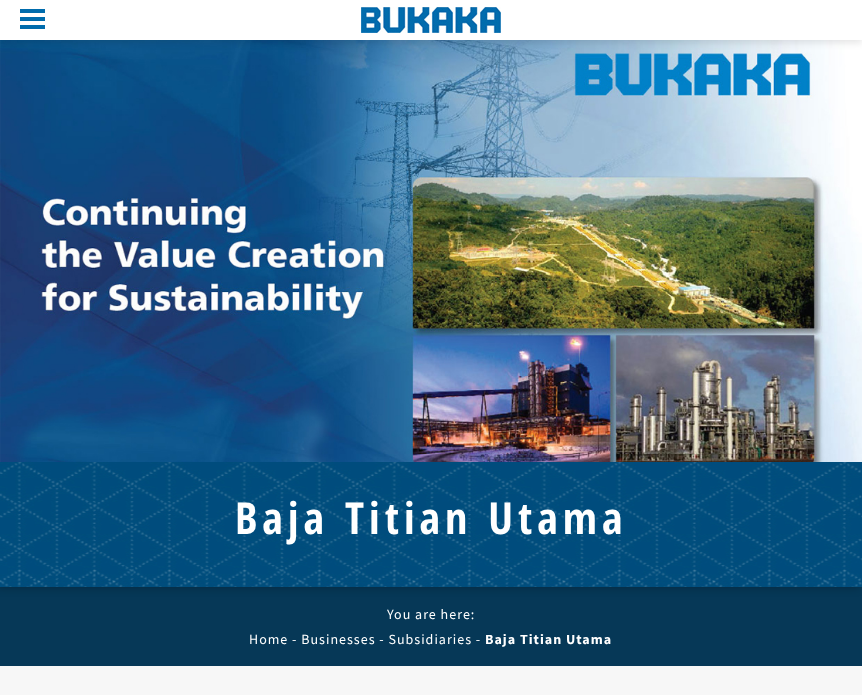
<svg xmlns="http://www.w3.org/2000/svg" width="862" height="695">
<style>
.a{font:bold 44px Open Sans Condensed;letter-spacing:5px;fill:#fff}
.b{font:14px Source Sans Pro;letter-spacing:1px;fill:#fff}
.c{font:bold 14px Source Sans Pro;letter-spacing:1px;fill:#fff}
</style>
<rect width="100%" height="100%" fill="#f7f7f7"/>
<path fill="#063857" d="M0 587h862v79H0z"/>
<path fill="#0000004d" filter="blur(5px)" d="M-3 0h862v587H-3z"/>
<image href="3.png" x="0" y="40" width="862" height="422"/>
<path fill="#0000001a" filter="blur(3.5px)" d="M0 3h862v40H0z"/>
<path fill="#fff" d="M0 0h862v40H0z"/>
<image href="1.png" x="20" y="9" width="25" height="20"/>
<image href="2.png" x="361" y="7" width="140" height="26"/>
<image href="4.png" x="0" y="462" width="862" height="125"/>
<text class="a" x="235" y="534">Baja Titian Utama</text>
<text class="b" x="387" y="619">You are here:</text>
<text class="b" x="249" y="644">Home - Businesses - Subsidiaries -</text>
<text class="c" x="485" y="644">Baja Titian Utama</text>
</svg>
